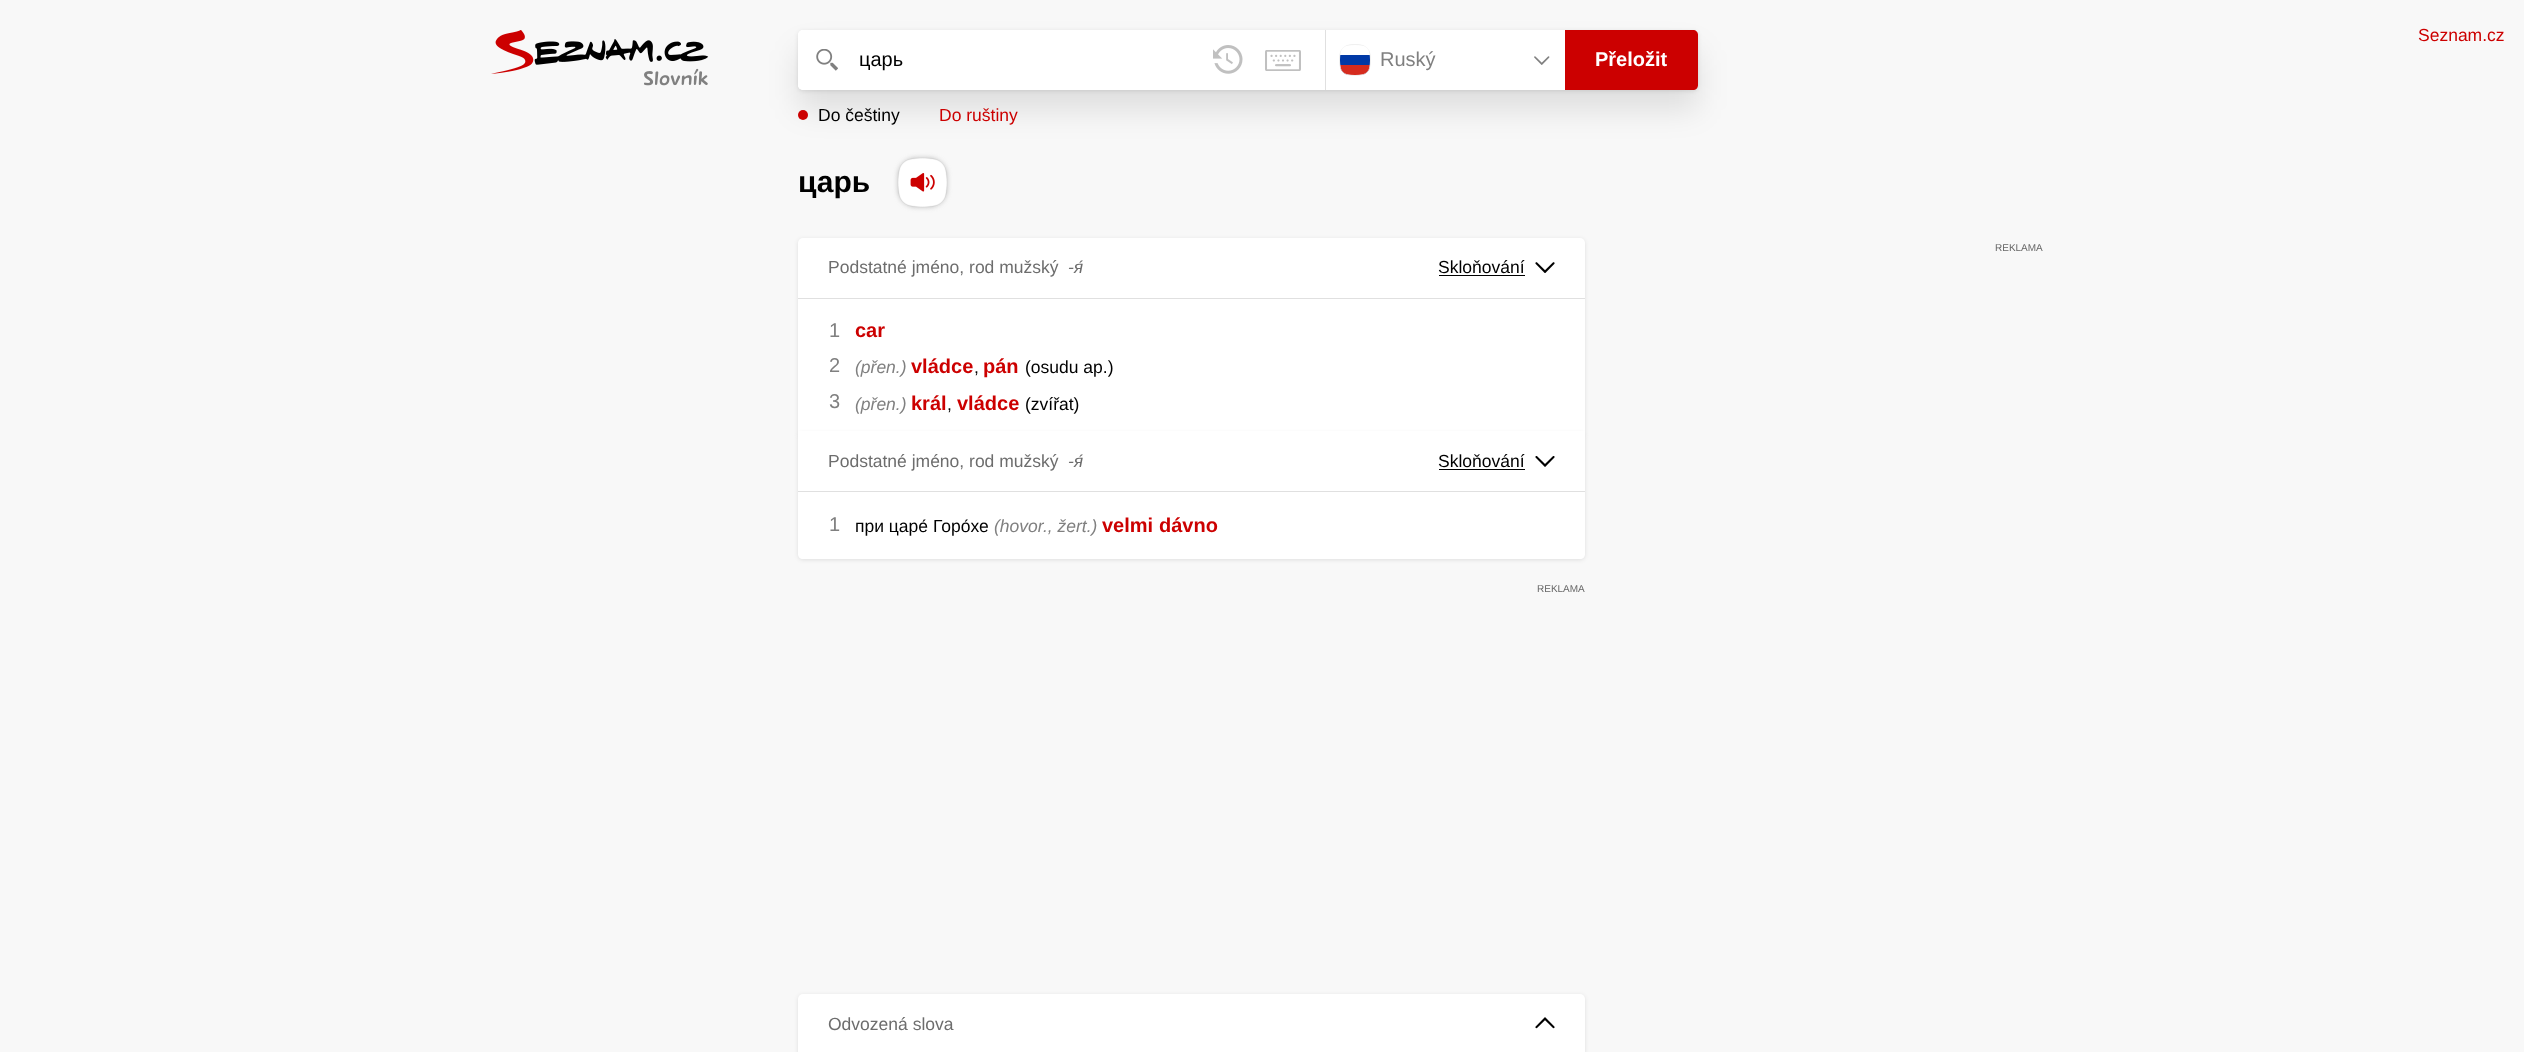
<svg xmlns="http://www.w3.org/2000/svg" width="2524" height="1052">
<style>
.a{font:20px Liberation Sans;fill:#000}
.b{font:20px Liberation Sans;fill:#808080}
.c{font:bold 20px Liberation Sans;fill:#fff}
.d{font:17.5px Liberation Sans;fill:#000}
.e{font:17.5px Liberation Sans;fill:#c00}
.f{font:bold 30px Liberation Sans;fill:#000}
.g{font:10px Liberation Sans;fill:#666}
.h{font:17.5px Liberation Sans;fill:#6d6d6d}
.i{font:italic 17.5px Liberation Sans;fill:#6d6d6d}
.j{font:bold 20px Liberation Sans;fill:#c00}
.k{font:italic 17.5px Liberation Sans;fill:#808080}
</style>
<rect width="100%" height="100%" fill="#f8f8f8"/>
<image href="1.png" x="491" y="30" width="218" height="56"/>
<rect fill="#0000001a" filter="blur(2px)" x="798" y="31" width="900" height="60" rx="5"/>
<rect fill="#0000001a" filter="blur(15px)" x="798" y="50" width="900" height="60" rx="5"/>
<rect fill="#fff" x="798" y="30" width="900" height="60" rx="5"/>
<rect fill="#fff" x="798" y="30" width="60" height="60" rx="5"/>
<image href="2.png" x="816" y="49" width="22" height="22"/>
<image href="3.png" x="1213" y="45" width="30" height="29"/>
<image href="4.png" x="1265" y="50" width="36" height="21"/>
<path fill="#e0e0e0" d="M1325 30h1v60H1325z"/>
<image href="5.png" x="1339" y="44" width="32" height="32"/>
<image href="6.png" x="1534" y="56" width="16" height="9"/>
<path fill="#c00" d="M1565 30h128c3 0 5 2 5 5v50c0 3-2 5-5 5h-128z"/>
<circle fill="#c00" cx="803" cy="115" r="5"/>
<rect fill="#808080" filter="blur(3px)" x="900" y="160" width="45" height="45" rx="16"/>
<image href="7.png" x="898" y="158" width="49" height="49"/>
<rect fill="#0000001a" filter="blur(2px)" x="798" y="239" width="787" height="199" rx="5"/>
<rect fill="#fff" x="798" y="238" width="787" height="198" rx="5"/>
<path fill="#e0e0e0" d="M798 298h787v1H798z"/>
<path fill="#000" d="M1439 275h86v1H1439z"/>
<image href="8.png" x="1535" y="262" width="20" height="11"/>
<rect fill="#0000001a" filter="blur(2px)" x="798" y="433" width="787" height="127" rx="5"/>
<path fill="#fff" d="M798 431h787v123c0 3-2 5-5 5h-777c-3 0-5-2-5-5z"/>
<path fill="#e0e0e0" d="M798 491h787v1H798z"/>
<path fill="#000" d="M1439 469h86v1H1439z"/>
<image href="9.png" x="1535" y="456" width="20" height="11"/>
<rect fill="#0000001a" filter="blur(2px)" x="798" y="995" width="787" height="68" rx="5"/>
<rect fill="#fff" x="798" y="994" width="787" height="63" rx="5"/>
<image href="10.png" x="1535" y="1017" width="20" height="12"/>
<text class="a" x="859" y="66">царь</text>
<text class="b" x="1380" y="66">Ruský</text>
<text class="c" x="1595" y="66">Přeložit</text>
<text class="d" x="818" y="121">Do češtiny</text>
<text class="e" x="939" y="121">Do ruštiny</text>
<text class="e" x="2418" y="41">Seznam.cz</text>
<text class="f" x="798" y="192">царь</text>
<text class="g" x="1995" y="251">REKLAMA</text>
<text class="h" x="828" y="273">Podstatné jméno, rod mužský</text>
<text class="i" x="1068" y="273">-я́</text>
<text class="d" x="1438" y="273">Skloňování</text>
<text class="b" x="829" y="337">1</text>
<text class="j" x="855" y="337">car</text>
<text class="b" x="829" y="372">2</text>
<text class="k" x="855" y="373">(přen.)</text>
<text class="j" x="911" y="373">vládce</text>
<text class="d" x="974" y="373">,</text>
<text class="j" x="983" y="373">pán</text>
<text class="d" x="1025" y="373">(osudu ap.)</text>
<text class="b" x="829" y="408">3</text>
<text class="k" x="855" y="410">(přen.)</text>
<text class="j" x="911" y="410">král</text>
<text class="d" x="947" y="410">,</text>
<text class="j" x="957" y="410">vládce</text>
<text class="d" x="1025" y="410">(zvířat)</text>
<text class="h" x="828" y="467">Podstatné jméno, rod mužský</text>
<text class="i" x="1068" y="467">-я́</text>
<text class="d" x="1438" y="467">Skloňování</text>
<text class="b" x="829" y="531">1</text>
<text class="d" x="855" y="532">при царе́ Горо́хе</text>
<text class="k" x="994" y="532">(hovor., žert.)</text>
<text class="j" x="1102" y="532">velmi</text>
<text class="j" x="1159" y="532">dávno</text>
<text class="g" x="1537" y="592">REKLAMA</text>
<text class="h" x="828" y="1030">Odvozená slova</text>
</svg>
